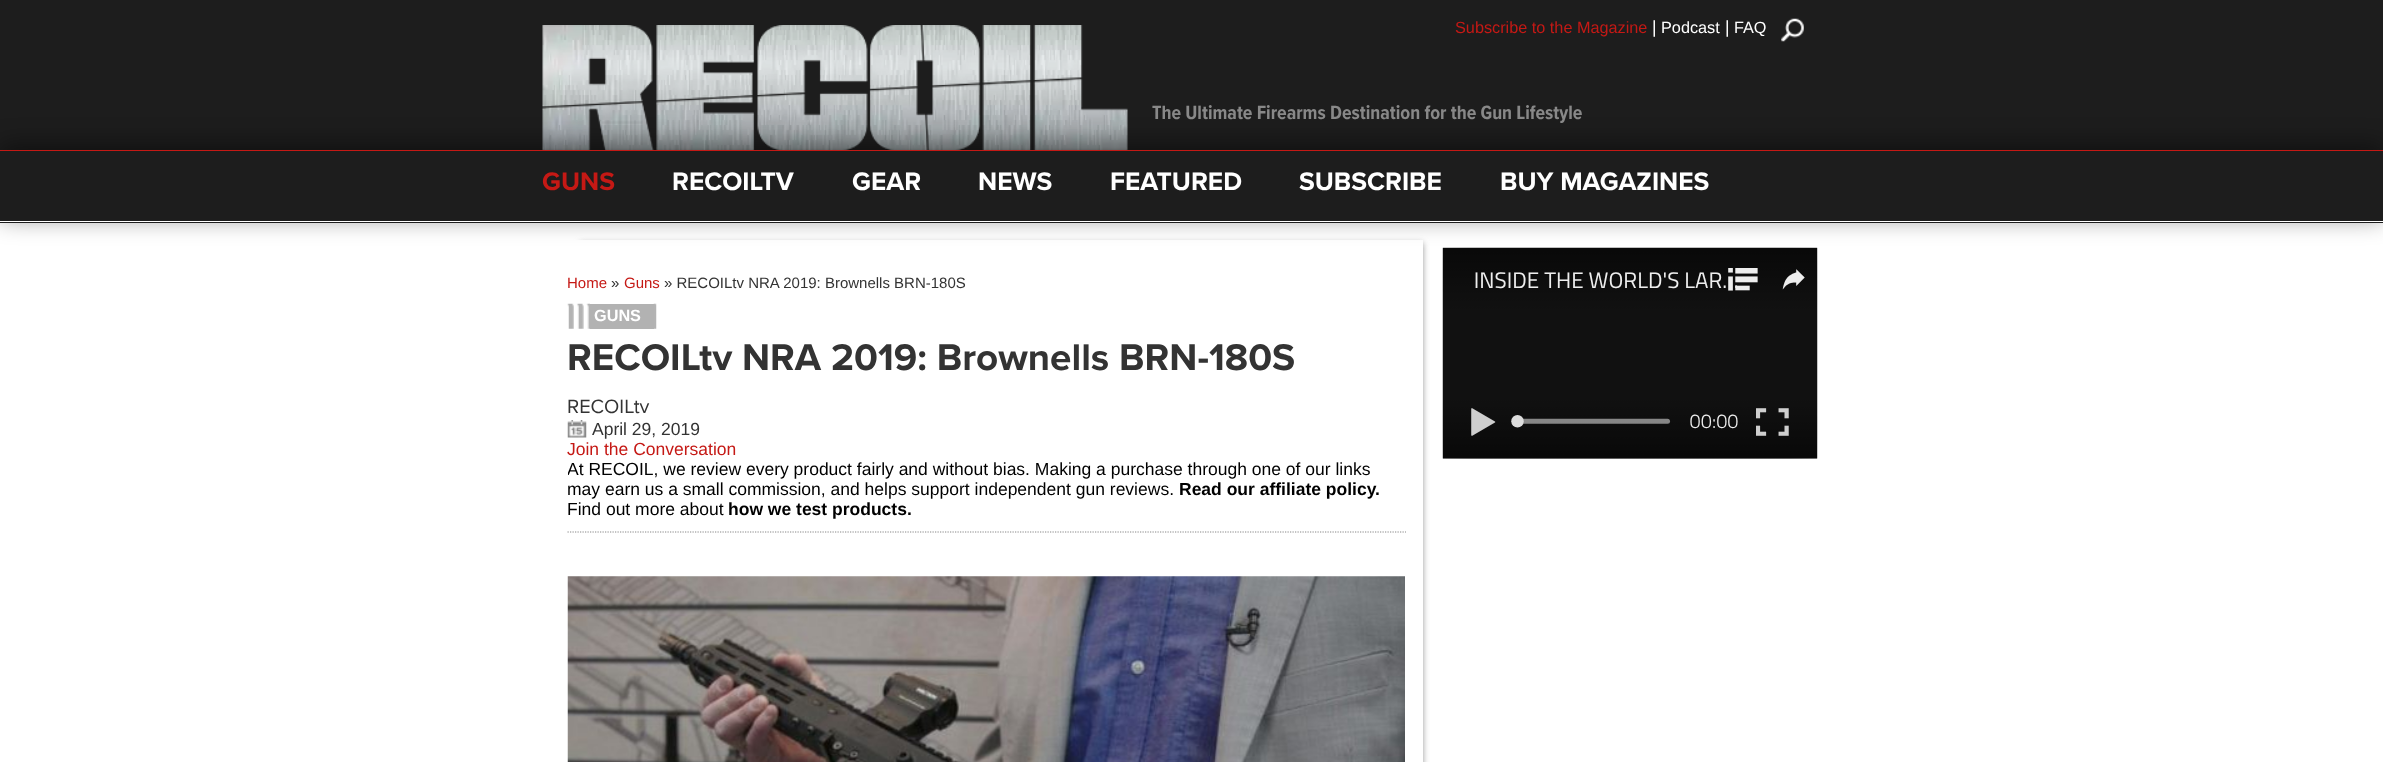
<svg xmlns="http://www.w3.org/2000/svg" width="2383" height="762">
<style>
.a{font:bold 20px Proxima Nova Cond;fill:#888}
.b{font:16.25px Liberation Sans;fill:#c51915}
.c{font:17.5px Liberation Sans;fill:#fff}
.d{font:16.25px Liberation Sans;fill:#fff}
.e{font:bold 26.25px Proxima Nova;fill:#c51915}
.f{font:bold 26.25px Proxima Nova;fill:#fff}
.g{font:15px Liberation Sans;fill:#c51915}
.h{font:15px Liberation Sans;fill:#333}
.i{font:bold 16.25px Liberation Sans;fill:#fff}
.j{font:bold 38.5px Proxima Nova;fill:#333}
.k{font:20px Proxima Nova;fill:#333}
.l{font:17.5px Liberation Sans;fill:#333}
.m{font:17.5px Liberation Sans;fill:#c51915}
.n{font:17.5px Liberation Sans;fill:#000}
.o{font:bold 17.5px Liberation Sans;fill:#000}
</style>
<defs>
<clipPath id="clip1"><path d="M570 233h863v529h-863zm-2 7h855v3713h-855z" clip-rule="evenodd"/></clipPath>
<clipPath id="clip2"><path d="M568 291h856v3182H568z"/></clipPath>
</defs>
<rect width="100%" height="100%" fill="#fff"/>
<path fill="#1d1d1d" d="M0 0h2383v150H0z"/>
<image href="1.png" x="542" y="25" width="586" height="125"/>
<image href="2.png" x="1781" y="18" width="23" height="24"/>
<image href="7.png" x="1442" y="247" width="376" height="212"/>
<path fill="#00000073" filter="blur(12.5px)" d="M0 145h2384v73H0z"/>
<path fill="#1d1d1d" d="M0 151h2383v72H0z"/>
<path fill="#c51915" d="M0 150h2383v1H0z"/>
<path fill="#fff" d="M0 221h2383v1H0z"/>
<g clip-path="url(#clip1)">
<path fill="#999" filter="blur(3px)" d="M580 243h843v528H580z"/>
</g>
<image href="3.png" x="567" y="303" width="23" height="26"/>
<path fill="#b2b2b2" d="M590 304h64v25H590z"/>
<image href="4.png" x="653" y="303" width="4" height="26"/>
<image href="5.png" x="567" y="420" width="20" height="18"/>
<path fill="none" stroke="#888" stroke-width="1.2" stroke-dasharray="1.25 1.25" d="M567.5 532h838.5"/>
<image href="6.png" x="567" y="576" width="838" height="186"/>
<path fill="#fff" d="M1422 291h1v50H1422z"/>
<text class="a" x="1152" y="119">The Ultimate Firearms Destination for the Gun Lifestyle</text>
<text class="b" x="1455" y="33">Subscribe to the Magazine</text>
<text class="c" x="1652" y="33">|</text>
<text class="d" x="1661" y="33">Podcast</text>
<text class="c" x="1725" y="33">|</text>
<text class="d" x="1734" y="33">FAQ</text>
<text class="e" x="542" y="190">GUNS</text>
<text class="f" x="672" y="190">RECOILTV</text>
<text class="f" x="852" y="190">GEAR</text>
<text class="f" x="978" y="190">NEWS</text>
<text class="f" x="1110" y="190">FEATURED</text>
<text class="f" x="1299" y="190">SUBSCRIBE</text>
<text class="f" x="1500" y="190">BUY MAGAZINES</text>
<text class="g" x="567" y="288">Home</text>
<text class="h" x="611" y="288">»</text>
<text class="g" x="624" y="288">Guns</text>
<text class="h" x="664" y="288">» RECOILtv NRA 2019: Brownells BRN-180S</text>
<text class="i" x="594" y="321">GUNS</text>
<text class="j" x="567" y="370">RECOILtv NRA 2019: Brownells BRN-180S</text>
<text class="k" x="567" y="413">RECOILtv</text>
<text class="l" x="592" y="435">April 29, 2019</text>
<text class="m" x="567" y="455">Join the Conversation</text>
<g clip-path="url(#clip2)">
<text class="n" x="567" y="475">At RECOIL, we review every product fairly and without bias. Making a purchase through one of our links</text>
</g>
<text class="n" x="567" y="495">may earn us a small commission, and helps support independent gun reviews.</text>
<text class="o" x="1179" y="495">Read our affiliate policy.</text>
<text class="n" x="567" y="515">Find out more about</text>
<text class="o" x="728" y="515">how we test products.</text>
</svg>
